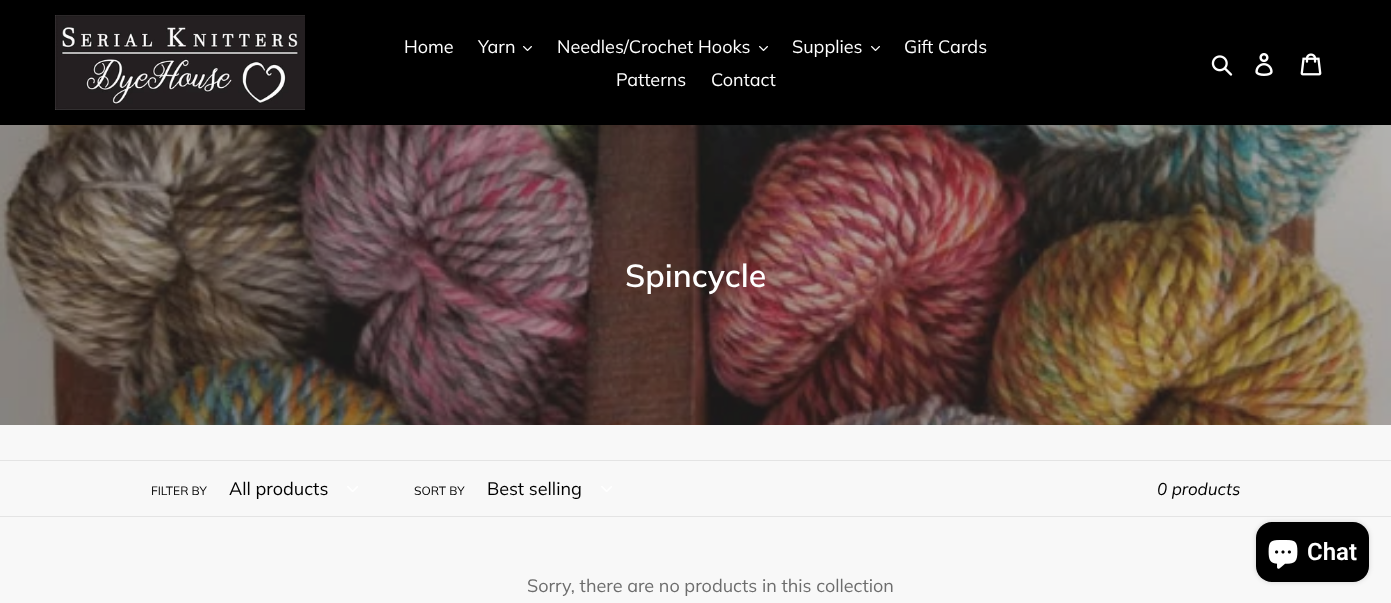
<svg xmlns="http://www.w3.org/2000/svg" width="1391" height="603">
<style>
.a{font:18px Muli;fill:#fff}
.b{font:600 32px Muli;fill:#fff}
.c{font:12px Muli;fill:#000}
.d{font:18px Muli;fill:#000}
.e{font:italic 17px Muli;fill:#000}
.f{font:18px Muli;fill:#6d6d6d}
.g{font:600 24px Roboto;fill:#fff}
</style>
<rect width="100%" height="100%" fill="#f8f8f8"/>
<path fill="#000" d="M0 0h1391v125H0z"/>
<image href="1.png" x="55" y="15" width="250" height="95"/>
<image href="2.png" x="523" y="46" width="9" height="5"/>
<image href="2.png" x="759" y="46" width="9" height="5"/>
<image href="2.png" x="871" y="46" width="9" height="5"/>
<image href="3.png" x="1211" y="55" width="22" height="21"/>
<image href="4.png" x="1255" y="53" width="18" height="23"/>
<image href="5.png" x="1300" y="53" width="22" height="23"/>
<image href="6.png" x="0" y="125" width="1391" height="300"/>
<path fill="#e4e4e4" d="M0 460h1391v1H0z"/>
<path fill="#e4e4e4" d="M0 516h1391v1H0z"/>
<image href="7.png" x="347" y="486" width="11" height="6"/>
<image href="7.png" x="601" y="486" width="11" height="6"/>
<rect fill="#00000026" filter="blur(2.5px)" x="1256" y="522" width="113" height="60" rx="16"/>
<rect fill="#000" x="1256" y="522" width="113" height="60" rx="16"/>
<image href="8.png" x="1268" y="540" width="30" height="29"/>
<text class="a" x="404" y="53">Home</text>
<text class="a" x="478" y="53">Yarn</text>
<text class="a" x="557" y="53">Needles/Crochet Hooks</text>
<text class="a" x="792" y="53">Supplies</text>
<text class="a" x="904" y="53">Gift Cards</text>
<text class="a" x="616" y="86">Patterns</text>
<text class="a" x="711" y="86">Contact</text>
<text class="b" x="625" y="287">Spincycle</text>
<text class="c" x="151" y="495">FILTER BY</text>
<text class="d" x="229" y="495">All products</text>
<text class="c" x="414" y="495">SORT BY</text>
<text class="d" x="487" y="495">Best selling</text>
<text class="e" x="1157" y="495">0 products</text>
<text class="f" x="527" y="592">Sorry, there are no products in this collection</text>
<text class="g" x="1307" y="560">Chat</text>
</svg>
